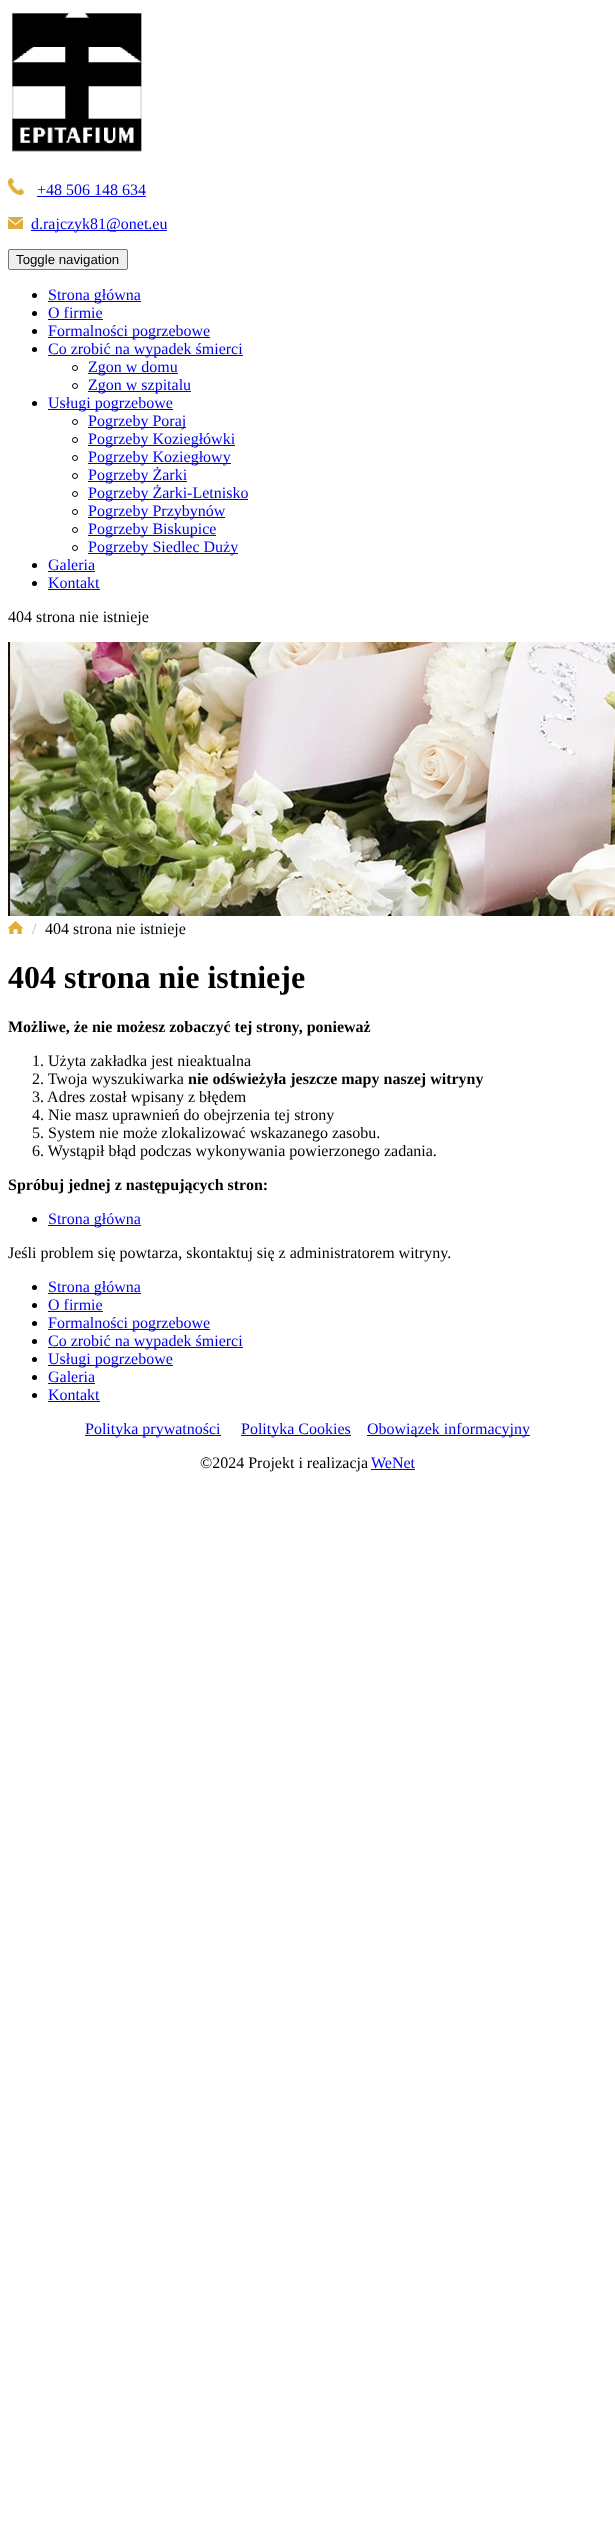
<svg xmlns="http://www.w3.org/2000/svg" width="615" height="2521">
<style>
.a{font:16px Liberation Serif;fill:#00e}
.b{font:13.25px Liberation Sans;fill:#000}
.c{font:16px Liberation Serif;fill:#000}
.d{font:16px Liberation Serif;fill:#b8b8b8}
.e{font:bold 32px Liberation Serif;fill:#000}
.f{font:bold 16px Liberation Serif;fill:#000}
</style>
<rect width="100%" height="100%" fill="#fff"/>
<image href="1.png" x="11" y="11" width="132" height="141"/>
<image href="2.png" x="8" y="178" width="17" height="17"/>
<path fill="#00e" d="M37 196h109v1H37z"/>
<image href="3.png" x="8" y="217" width="15" height="12"/>
<path fill="#00e" d="M31 230h136v1H31z"/>
<rect fill="#efefef" stroke="#767676" x="8.5" y="249.5" width="119" height="20" rx="1.5"/>
<circle fill="#000" cx="34.5" cy="295.5" r="2.5"/>
<path fill="#00e" d="M48 301h93v1H48z"/>
<circle fill="#000" cx="34.5" cy="313.5" r="2.5"/>
<path fill="#00e" d="M48 319h55v1H48z"/>
<circle fill="#000" cx="34.5" cy="331.5" r="2.5"/>
<path fill="#00e" d="M48 337h162v1H48z"/>
<circle fill="#000" cx="34.5" cy="349.5" r="2.5"/>
<path fill="#00e" d="M48 355h195v1H48z"/>
<circle fill="none" stroke="#000" cx="75" cy="368" r="2.5"/>
<path fill="#00e" d="M88 373h90v1H88z"/>
<circle fill="none" stroke="#000" cx="75" cy="386" r="2.5"/>
<path fill="#00e" d="M88 391h103v1H88z"/>
<circle fill="#000" cx="34.5" cy="403.5" r="2.5"/>
<path fill="#00e" d="M48 409h125v1H48z"/>
<circle fill="none" stroke="#000" cx="75" cy="422" r="2.5"/>
<path fill="#00e" d="M88 427h98v1H88z"/>
<circle fill="none" stroke="#000" cx="75" cy="440" r="2.5"/>
<path fill="#00e" d="M88 445h147v1H88z"/>
<circle fill="none" stroke="#000" cx="75" cy="458" r="2.5"/>
<path fill="#00e" d="M88 463h143v1H88z"/>
<circle fill="none" stroke="#000" cx="75" cy="476" r="2.5"/>
<path fill="#00e" d="M88 481h99v1H88z"/>
<circle fill="none" stroke="#000" cx="75" cy="494" r="2.5"/>
<path fill="#00e" d="M88 499h160v1H88z"/>
<circle fill="none" stroke="#000" cx="75" cy="512" r="2.5"/>
<path fill="#00e" d="M88 517h137v1H88z"/>
<circle fill="none" stroke="#000" cx="75" cy="530" r="2.5"/>
<path fill="#00e" d="M88 535h128v1H88z"/>
<circle fill="none" stroke="#000" cx="75" cy="548" r="2.5"/>
<path fill="#00e" d="M88 553h150v1H88z"/>
<circle fill="#000" cx="34.5" cy="565.5" r="2.5"/>
<path fill="#00e" d="M48 571h47v1H48z"/>
<circle fill="#000" cx="34.5" cy="583.5" r="2.5"/>
<path fill="#00e" d="M48 589h52v1H48z"/>
<image href="4.png" x="8" y="642" width="607" height="274"/>
<image href="5.png" x="8" y="921" width="15" height="13"/>
<circle fill="#000" cx="34.5" cy="1219.5" r="2.5"/>
<path fill="#00e" d="M48 1225h93v1H48z"/>
<circle fill="#000" cx="34.5" cy="1287.5" r="2.5"/>
<path fill="#00e" d="M48 1293h93v1H48z"/>
<circle fill="#000" cx="34.5" cy="1305.5" r="2.5"/>
<path fill="#00e" d="M48 1311h55v1H48z"/>
<circle fill="#000" cx="34.5" cy="1323.5" r="2.5"/>
<path fill="#00e" d="M48 1329h162v1H48z"/>
<circle fill="#000" cx="34.5" cy="1341.5" r="2.5"/>
<path fill="#00e" d="M48 1347h195v1H48z"/>
<circle fill="#000" cx="34.5" cy="1359.5" r="2.5"/>
<path fill="#00e" d="M48 1365h125v1H48z"/>
<circle fill="#000" cx="34.5" cy="1377.5" r="2.5"/>
<path fill="#00e" d="M48 1383h47v1H48z"/>
<circle fill="#000" cx="34.5" cy="1395.5" r="2.5"/>
<path fill="#00e" d="M48 1401h52v1H48z"/>
<path fill="#00e" d="M85 1435h136v1H85z"/>
<path fill="#00e" d="M241 1435h110v1H241z"/>
<path fill="#00e" d="M367 1435h163v1H367z"/>
<path fill="#00e" d="M371 1469h44v1H371z"/>
<text class="a" x="37" y="195">+48 506 148 634</text>
<text class="a" x="31" y="229">d.rajczyk81@onet.eu</text>
<text class="b" x="16" y="264">Toggle navigation</text>
<text class="a" x="48" y="300">Strona główna</text>
<text class="a" x="48" y="318">O firmie</text>
<text class="a" x="48" y="336">Formalności pogrzebowe</text>
<text class="a" x="48" y="354">Co zrobić na wypadek śmierci</text>
<text class="a" x="88" y="372">Zgon w domu</text>
<text class="a" x="88" y="390">Zgon w szpitalu</text>
<text class="a" x="48" y="408">Usługi pogrzebowe</text>
<text class="a" x="88" y="426">Pogrzeby Poraj</text>
<text class="a" x="88" y="444">Pogrzeby Koziegłówki</text>
<text class="a" x="88" y="462">Pogrzeby Koziegłowy</text>
<text class="a" x="88" y="480">Pogrzeby Żarki</text>
<text class="a" x="88" y="498">Pogrzeby Żarki-Letnisko</text>
<text class="a" x="88" y="516">Pogrzeby Przybynów</text>
<text class="a" x="88" y="534">Pogrzeby Biskupice</text>
<text class="a" x="88" y="552">Pogrzeby Siedlec Duży</text>
<text class="a" x="48" y="570">Galeria</text>
<text class="a" x="48" y="588">Kontakt</text>
<text class="c" x="8" y="622">404 strona nie istnieje</text>
<text class="d" x="32" y="934">/</text>
<text class="c" x="45" y="934">404 strona nie istnieje</text>
<text class="e" x="8" y="988">404 strona nie istnieje</text>
<text class="f" x="8" y="1032">Możliwe, że nie możesz zobaczyć tej strony, ponieważ</text>
<text class="c" x="32" y="1066">1. Użyta zakładka jest nieaktualna</text>
<text class="c" x="32" y="1084">2. Twoja wyszukiwarka</text>
<text class="f" x="188" y="1084">nie odświeżyła jeszcze mapy naszej witryny</text>
<text class="c" x="32" y="1102">3. Adres został wpisany z błędem</text>
<text class="c" x="32" y="1120">4. Nie masz uprawnień do obejrzenia tej strony</text>
<text class="c" x="32" y="1138">5. System nie może zlokalizować wskazanego zasobu.</text>
<text class="c" x="32" y="1156">6. Wystąpił błąd podczas wykonywania powierzonego zadania.</text>
<text class="f" x="8" y="1190">Spróbuj jednej z następujących stron:</text>
<text class="a" x="48" y="1224">Strona główna</text>
<text class="c" x="8" y="1258">Jeśli problem się powtarza, skontaktuj się z administratorem witryny.</text>
<text class="a" x="48" y="1292">Strona główna</text>
<text class="a" x="48" y="1310">O firmie</text>
<text class="a" x="48" y="1328">Formalności pogrzebowe</text>
<text class="a" x="48" y="1346">Co zrobić na wypadek śmierci</text>
<text class="a" x="48" y="1364">Usługi pogrzebowe</text>
<text class="a" x="48" y="1382">Galeria</text>
<text class="a" x="48" y="1400">Kontakt</text>
<text class="a" x="85" y="1434">Polityka prywatności</text>
<text class="a" x="241" y="1434">Polityka Cookies</text>
<text class="a" x="367" y="1434">Obowiązek informacyjny</text>
<text class="c" x="200" y="1468">©2024 Projekt i realizacja</text>
<text class="a" x="371" y="1468">WeNet</text>
</svg>
